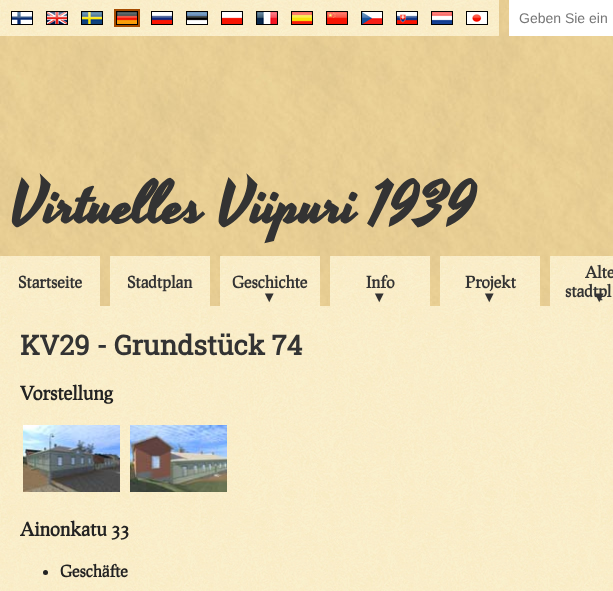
<svg xmlns="http://www.w3.org/2000/svg" width="613" height="591">
<style>
.a{font:14px Liberation Sans;fill:#757575}
.b{font:bold 60px Yesteryear;fill:#333}
.c{font:bold 16px Prociono;fill:#333}
.d{font:bold 16px DejaVu Sans;fill:#333}
.e{font:bold 27.25px Roboto Slab;fill:#333}
.f{font:bold 18.75px Prociono;fill:#222}
.g{font:bold 16px Prociono;fill:#222}
</style>
<rect width="100%" height="100%" fill="#fff"/>
<image href="1.png" x="0" y="0" width="613" height="306"/>
<image href="2.png" x="0" y="0" width="499" height="36"/>
<path fill="#000" d="M11 11h22v14H11z"/>
<image href="3.png" x="12" y="12" width="20" height="12"/>
<path fill="#000" d="M46 11h22v14H46z"/>
<image href="4.png" x="47" y="12" width="20" height="12"/>
<path fill="#000" d="M81 11h22v14H81z"/>
<image href="5.png" x="82" y="12" width="20" height="12"/>
<path fill="#000" stroke="#a64b00" stroke-width="2" d="M115 10h24v16H115z"/>
<image href="6.png" x="117" y="12" width="20" height="12"/>
<path fill="#000" d="M151 11h22v14H151z"/>
<image href="7.png" x="152" y="12" width="20" height="12"/>
<path fill="#000" d="M186 11h22v14H186z"/>
<image href="8.png" x="187" y="12" width="20" height="12"/>
<path fill="#000" d="M221 11h22v14H221z"/>
<image href="9.png" x="222" y="12" width="20" height="12"/>
<path fill="#000" d="M256 11h22v14H256z"/>
<image href="10.png" x="257" y="12" width="20" height="12"/>
<path fill="#000" d="M291 11h22v14H291z"/>
<image href="11.png" x="292" y="12" width="20" height="12"/>
<path fill="#000" d="M326 11h22v14H326z"/>
<image href="12.png" x="327" y="12" width="20" height="12"/>
<path fill="#000" d="M361 11h22v14H361z"/>
<image href="13.png" x="362" y="12" width="20" height="12"/>
<path fill="#000" d="M396 11h22v14H396z"/>
<image href="14.png" x="397" y="12" width="20" height="12"/>
<path fill="#000" d="M431 11h22v14H431z"/>
<image href="15.png" x="432" y="12" width="20" height="12"/>
<path fill="#000" d="M466 11h22v14H466z"/>
<image href="16.png" x="467" y="12" width="20" height="12"/>
<path fill="#fff" d="M509 0h104v36H509z"/>
<image href="17.png" x="0" y="256" width="100" height="50"/>
<image href="17.png" x="110" y="256" width="100" height="50"/>
<image href="17.png" x="220" y="256" width="100" height="50"/>
<image href="17.png" x="330" y="256" width="100" height="50"/>
<image href="17.png" x="440" y="256" width="100" height="50"/>
<image href="18.png" x="550" y="256" width="63" height="50"/>
<image href="19.png" x="0" y="306" width="613" height="285"/>
<image href="20.png" x="23" y="425" width="97" height="67"/>
<image href="21.png" x="130" y="425" width="97" height="67"/>
<circle fill="#222" cx="45.5" cy="572.5" r="2.5"/>
<text class="a" x="519" y="23">Geben Sie ein</text>
<text class="b" x="10" y="222">Virtuelles Viipuri 1939</text>
<text class="c" x="18" y="288">Startseite</text>
<text class="c" x="127" y="288">Stadtplan</text>
<text class="c" x="232" y="288">Geschichte</text>
<text class="d" x="265" y="302">▾</text>
<text class="c" x="366" y="288">Info</text>
<text class="d" x="375" y="302">▾</text>
<text class="c" x="465" y="288">Projekt</text>
<text class="d" x="485" y="302">▾</text>
<text class="c" x="585" y="278">Alte</text>
<text class="c" x="565" y="297">stadtpl</text>
<text class="d" x="595" y="302">▾</text>
<text class="e" x="20" y="355">KV29 - Grundstück 74</text>
<text class="f" x="20" y="400">Vorstellung</text>
<text class="f" x="20" y="536">Ainonkatu 33</text>
<text class="g" x="60" y="577">Geschäfte</text>
</svg>
